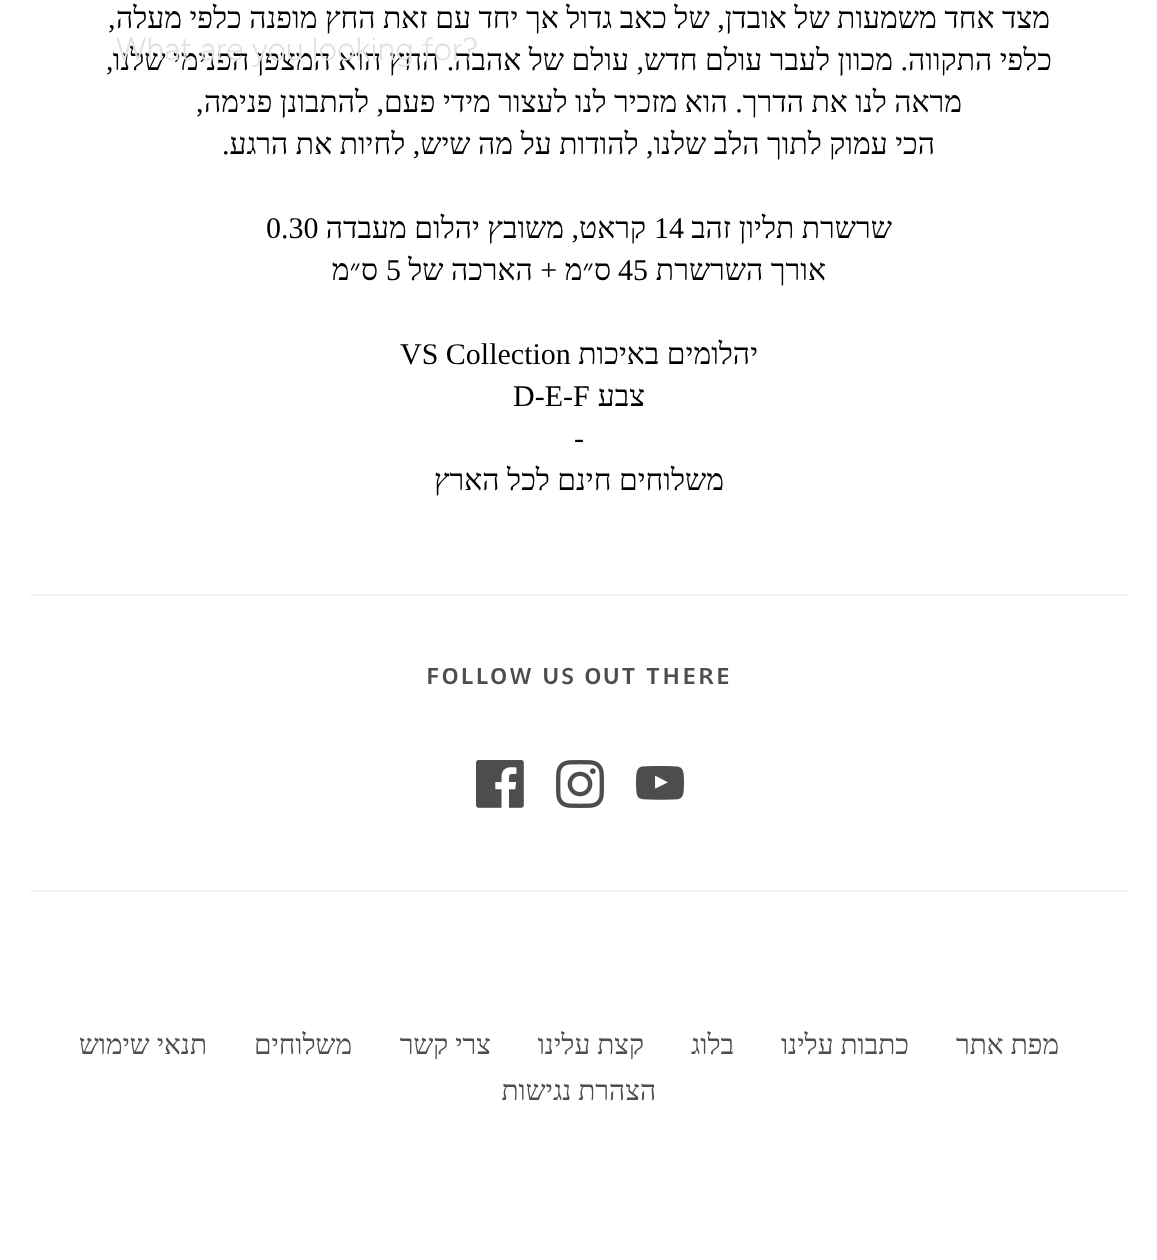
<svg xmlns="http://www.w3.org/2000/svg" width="1157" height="1260">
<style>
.a{font:30px Liberation Serif;direction:rtl;fill:#000}
.b{font:30px Liberation Serif;fill:#000}
.c{font:300 32px Figtree;fill:#e1e1e1}
.d{font:500 28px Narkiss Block;letter-spacing:2.25px;fill:#4d4d4d}
.e{font:28px Liberation Serif;direction:rtl;fill:#4d4d4d}
</style>
<rect width="100%" height="100%" fill="#fff"/>
<path fill="#f4f2f1" d="M30 594h1098v2H30z"/>
<path fill="#f4f2f1" d="M30 890h1098v2H30z"/>
<image href="1.png" x="636" y="766" width="48" height="34"/>
<image href="2.png" x="556" y="760" width="48" height="48"/>
<image href="3.png" x="476" y="760" width="48" height="48"/>
<text class="a" x="1050" y="28">מצד אחד משמעות של אובדן, של כאב גדול אך יחד עם זאת החץ מופנה כלפי מעלה</text>
<text class="b" x="108" y="28">,</text>
<text class="a" x="1052" y="70">כלפי התקווה. מכוון לעבר עולם חדש, עולם של אהבה. החץ הוא המצפן הפנימי שלנו</text>
<text class="b" x="106" y="70">,</text>
<text class="a" x="962" y="112">מראה לנו את הדרך. הוא מזכיר לנו לעצור מידי פעם, להתבונן פנימה</text>
<text class="b" x="196" y="112">,</text>
<text class="a" x="935" y="154">הכי עמוק לתוך הלב שלנו, להודות על מה שיש, לחיות את הרגע</text>
<text class="b" x="222" y="154">.</text>
<text class="a" x="892" y="238">שרשרת תליון זהב</text>
<text class="b" x="654" y="238">14</text>
<text class="a" x="646" y="238">קראט, משובץ יהלום מעבדה</text>
<text class="b" x="266" y="238">0.30</text>
<text class="a" x="826" y="280">אורך השרשרת</text>
<text class="b" x="618" y="280">45</text>
<text class="a" x="611" y="280">ס״מ + הארכה של</text>
<text class="b" x="386" y="280">5</text>
<text class="a" x="378" y="280">ס״מ</text>
<text class="a" x="758" y="364">יהלומים באיכות</text>
<text class="b" x="400" y="364">VS Collection</text>
<text class="a" x="645" y="406">צבע</text>
<text class="b" x="513" y="406">D-E-F</text>
<text class="b" x="574" y="448">-</text>
<text class="a" x="724" y="490">משלוחים חינם לכל הארץ</text>
<text class="c" x="116" y="60">What are you looking for?</text>
<text class="d" x="426" y="684">FOLLOW US OUT THERE</text>
<text class="e" x="1059" y="1054">מפת אתר</text>
<text class="e" x="909" y="1054">כתבות עלינו</text>
<text class="e" x="734" y="1054">בלוג</text>
<text class="e" x="644" y="1054">קצת עלינו</text>
<text class="e" x="491" y="1054">צרי קשר</text>
<text class="e" x="352" y="1054">משלוחים</text>
<text class="e" x="207" y="1054">תנאי שימוש</text>
<text class="e" x="656" y="1100">הצהרת נגישות</text>
</svg>
